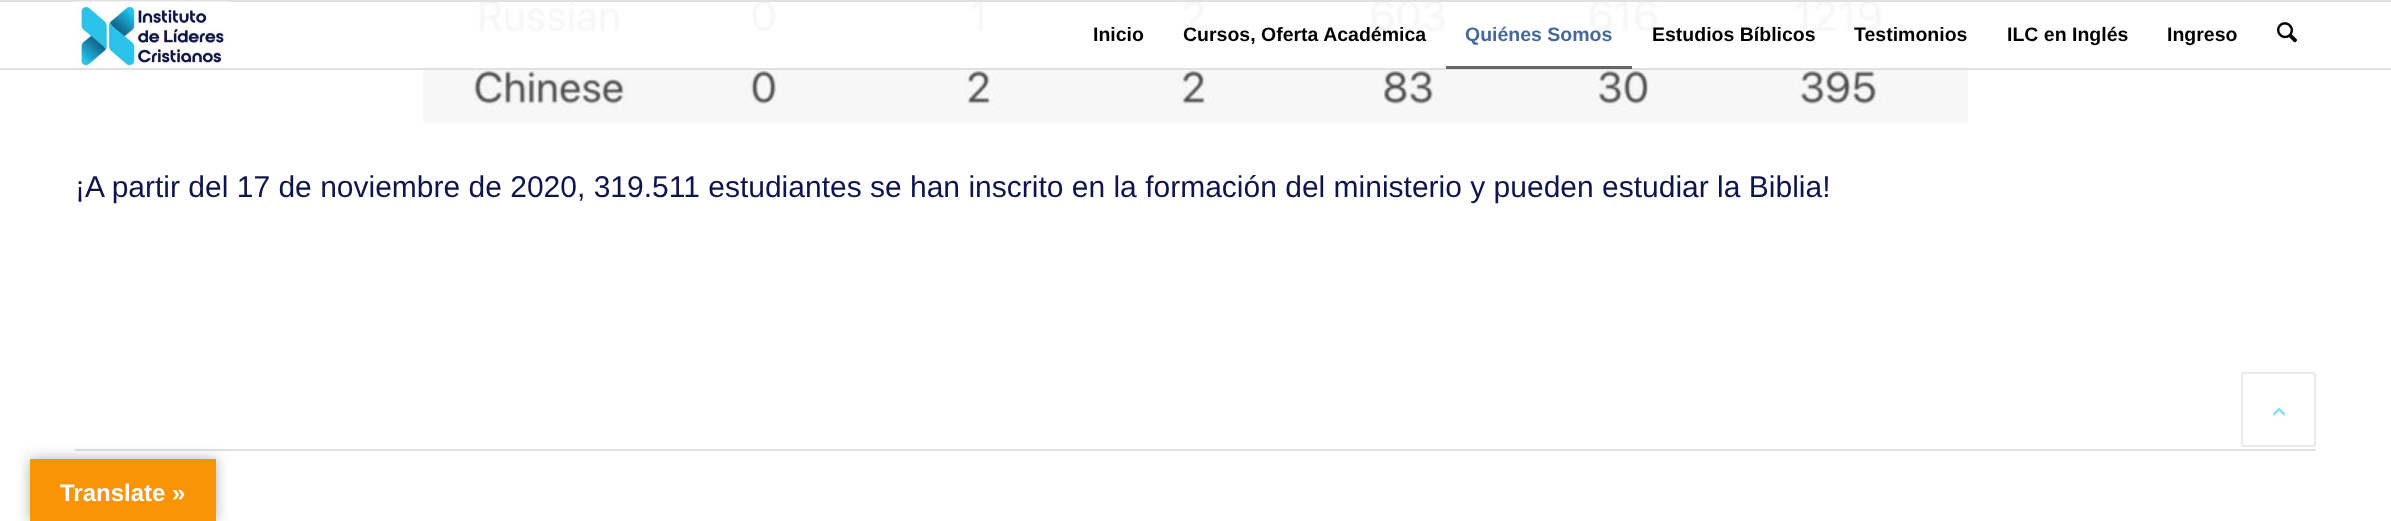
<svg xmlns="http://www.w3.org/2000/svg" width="2391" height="521">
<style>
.a{font:bold 19.5px Liberation Sans;fill:#000}
.b{font:bold 19.5px Liberation Sans;fill:#45699c}
.c{font:30px Liberation Sans;fill:#0f154c}
.d{font:bold 24px Liberation Sans;fill:#fff}
</style>
<rect width="100%" height="100%" fill="#fff"/>
<image href="3.png" x="423" y="2" width="1545" height="121"/>
<path fill="#fffffff2" d="M423 2h1545v66H423z"/>
<path fill="#e1e1e1" d="M0 0h2391v2H0z"/>
<path fill="#e1e1e1" d="M0 68h2391v2H0z"/>
<image href="1.png" x="75" y="1" width="155" height="67"/>
<path fill="#666" d="M1446 66h186v3H1446z"/>
<image href="2.png" x="2277" y="22" width="20" height="21"/>
<path fill="#e1e1e1" d="M75 449h2241v2H75z"/>
<rect fill="none" stroke="#eaeaea" stroke-width="2" x="2242" y="373" width="73" height="73" rx="2"/>
<image href="4.png" x="2273" y="408" width="12" height="8"/>
<path fill="#0000004d" filter="blur(7px)" d="M30 459h186v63H30z"/>
<path fill="#f89406" d="M30 459h186v62H30z"/>
<text class="a" x="1093" y="41">Inicio</text>
<text class="a" x="1183" y="41">Cursos, Oferta Académica</text>
<text class="b" x="1465" y="41">Quiénes Somos</text>
<text class="a" x="1652" y="41">Estudios Bíblicos</text>
<text class="a" x="1854" y="41">Testimonios</text>
<text class="a" x="2007" y="41">ILC en Inglés</text>
<text class="a" x="2167" y="41">Ingreso</text>
<text class="c" x="75" y="197">¡A partir del 17 de noviembre de 2020, 319.511 estudiantes se han inscrito en la formación del ministerio y pueden estudiar la Biblia!</text>
<text class="d" x="60" y="501">Translate »</text>
</svg>
